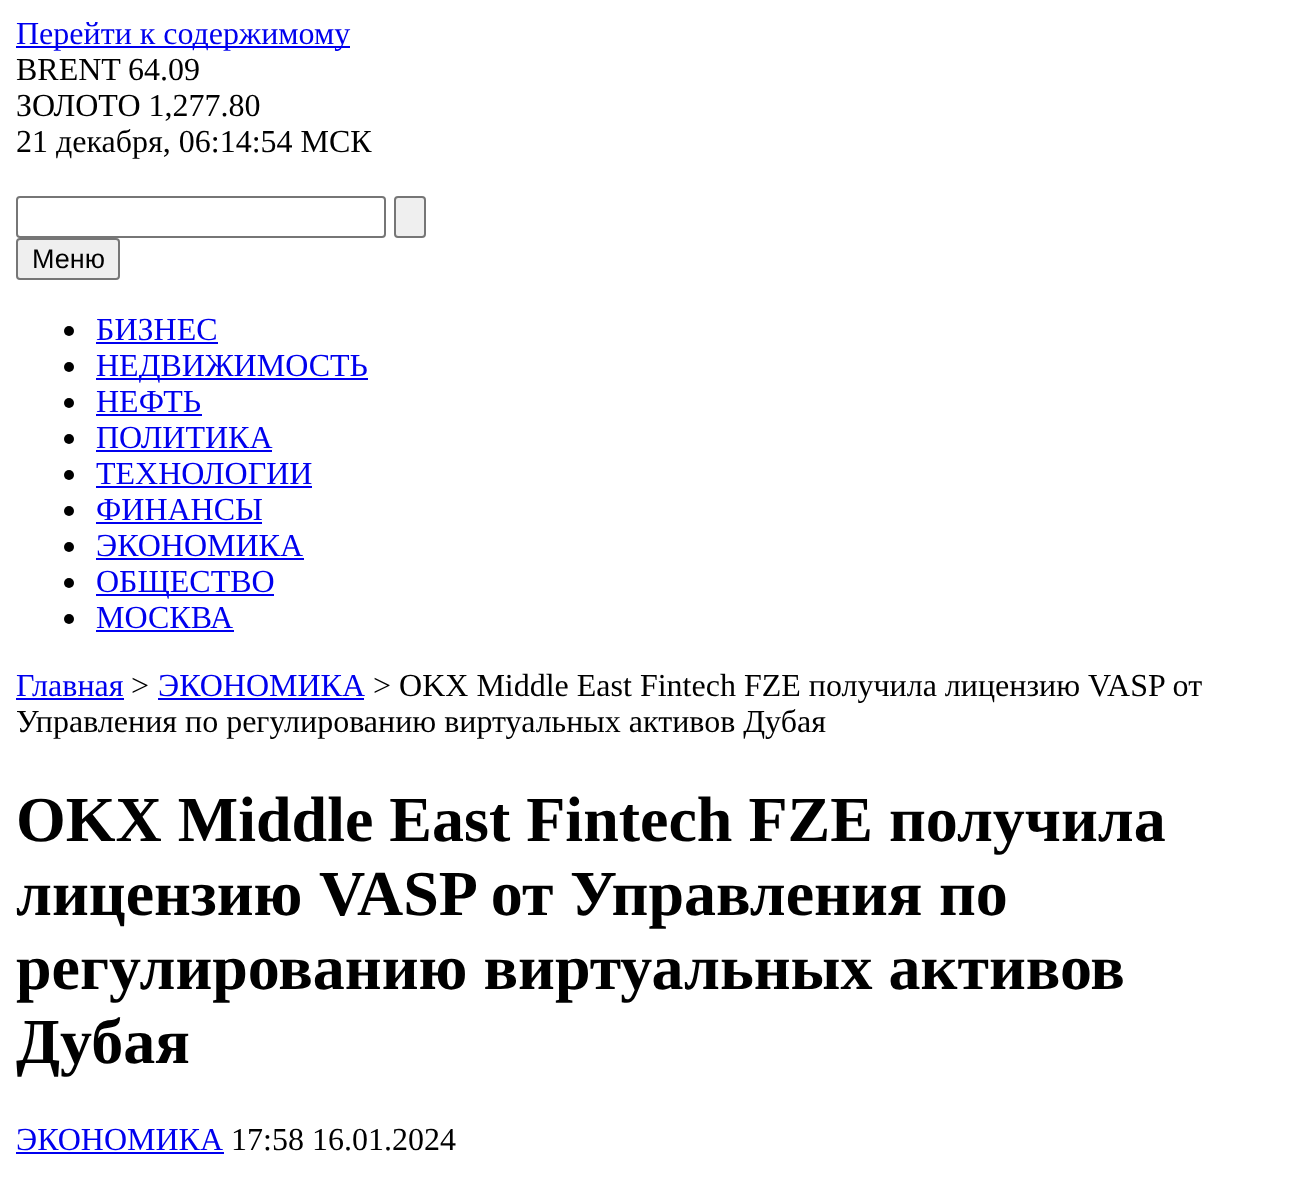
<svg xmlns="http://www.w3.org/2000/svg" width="1296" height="1184">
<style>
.a{font:32px Liberation Serif;fill:#00e}
.b{font:32px Liberation Serif;fill:#000}
.c{font:27px Liberation Sans;fill:#000}
.d{font:bold 64px Liberation Serif;fill:#000}
</style>
<rect width="100%" height="100%" fill="#fff"/>
<path fill="#00e" d="M16 46h334v2H16z"/>
<rect fill="none" stroke="#767676" stroke-width="2" x="17" y="197" width="368" height="40" rx="3"/>
<rect fill="#efefef" stroke="#767676" stroke-width="2" x="395" y="197" width="30" height="40" rx="3"/>
<rect fill="#efefef" stroke="#767676" stroke-width="2" x="17" y="239" width="102" height="40" rx="3"/>
<circle fill="#000" cx="69" cy="331" r="5"/>
<path fill="#00e" d="M96 342h122v2H96z"/>
<circle fill="#000" cx="69" cy="367" r="5"/>
<path fill="#00e" d="M96 378h272v2H96z"/>
<circle fill="#000" cx="69" cy="403" r="5"/>
<path fill="#00e" d="M96 414h106v2H96z"/>
<circle fill="#000" cx="69" cy="439" r="5"/>
<path fill="#00e" d="M96 450h176v2H96z"/>
<circle fill="#000" cx="69" cy="475" r="5"/>
<path fill="#00e" d="M96 486h216v2H96z"/>
<circle fill="#000" cx="69" cy="511" r="5"/>
<path fill="#00e" d="M96 522h166v2H96z"/>
<circle fill="#000" cx="69" cy="547" r="5"/>
<path fill="#00e" d="M96 558h208v2H96z"/>
<circle fill="#000" cx="69" cy="583" r="5"/>
<path fill="#00e" d="M96 594h178v2H96z"/>
<circle fill="#000" cx="69" cy="619" r="5"/>
<path fill="#00e" d="M96 630h138v2H96z"/>
<path fill="#00e" d="M16 698h108v2H16z"/>
<path fill="#00e" d="M158 698h206v2H158z"/>
<path fill="#00e" d="M16 1152h208v2H16z"/>
<text class="a" x="16" y="44">Перейти к содержимому</text>
<text class="b" x="16" y="80">BRENT</text>
<text class="b" x="128" y="80">64.09</text>
<text class="b" x="16" y="116">ЗОЛОТО 1,277.80</text>
<text class="b" x="16" y="152">21 декабря, 06:14:54 МСК</text>
<text class="c" x="32" y="268">Меню</text>
<text class="a" x="96" y="340">БИЗНЕС</text>
<text class="a" x="96" y="376">НЕДВИЖИМОСТЬ</text>
<text class="a" x="96" y="412">НЕФТЬ</text>
<text class="a" x="96" y="448">ПОЛИТИКА</text>
<text class="a" x="96" y="484">ТЕХНОЛОГИИ</text>
<text class="a" x="96" y="520">ФИНАНСЫ</text>
<text class="a" x="96" y="556">ЭКОНОМИКА</text>
<text class="a" x="96" y="592">ОБЩЕСТВО</text>
<text class="a" x="96" y="628">МОСКВА</text>
<text class="a" x="16" y="696">Главная</text>
<text class="b" x="131" y="696">&gt;</text>
<text class="a" x="158" y="696">ЭКОНОМИКА</text>
<text class="b" x="373" y="696">&gt; OKX Middle East Fintech FZE получила лицензию VASP от</text>
<text class="b" x="16" y="732">Управления по регулированию виртуальных активов Дубая</text>
<text class="d" x="16" y="841">OKX Middle East Fintech FZE получила</text>
<text class="d" x="16" y="915" word-spacing="0.5">лицензию VASP от Управления по</text>
<text class="d" x="16" y="989">регулированию виртуальных активов</text>
<text class="d" x="16" y="1063">Дубая</text>
<text class="a" x="16" y="1150">ЭКОНОМИКА</text>
<text class="b" x="231" y="1150">17:58 16.01.2024</text>
</svg>
